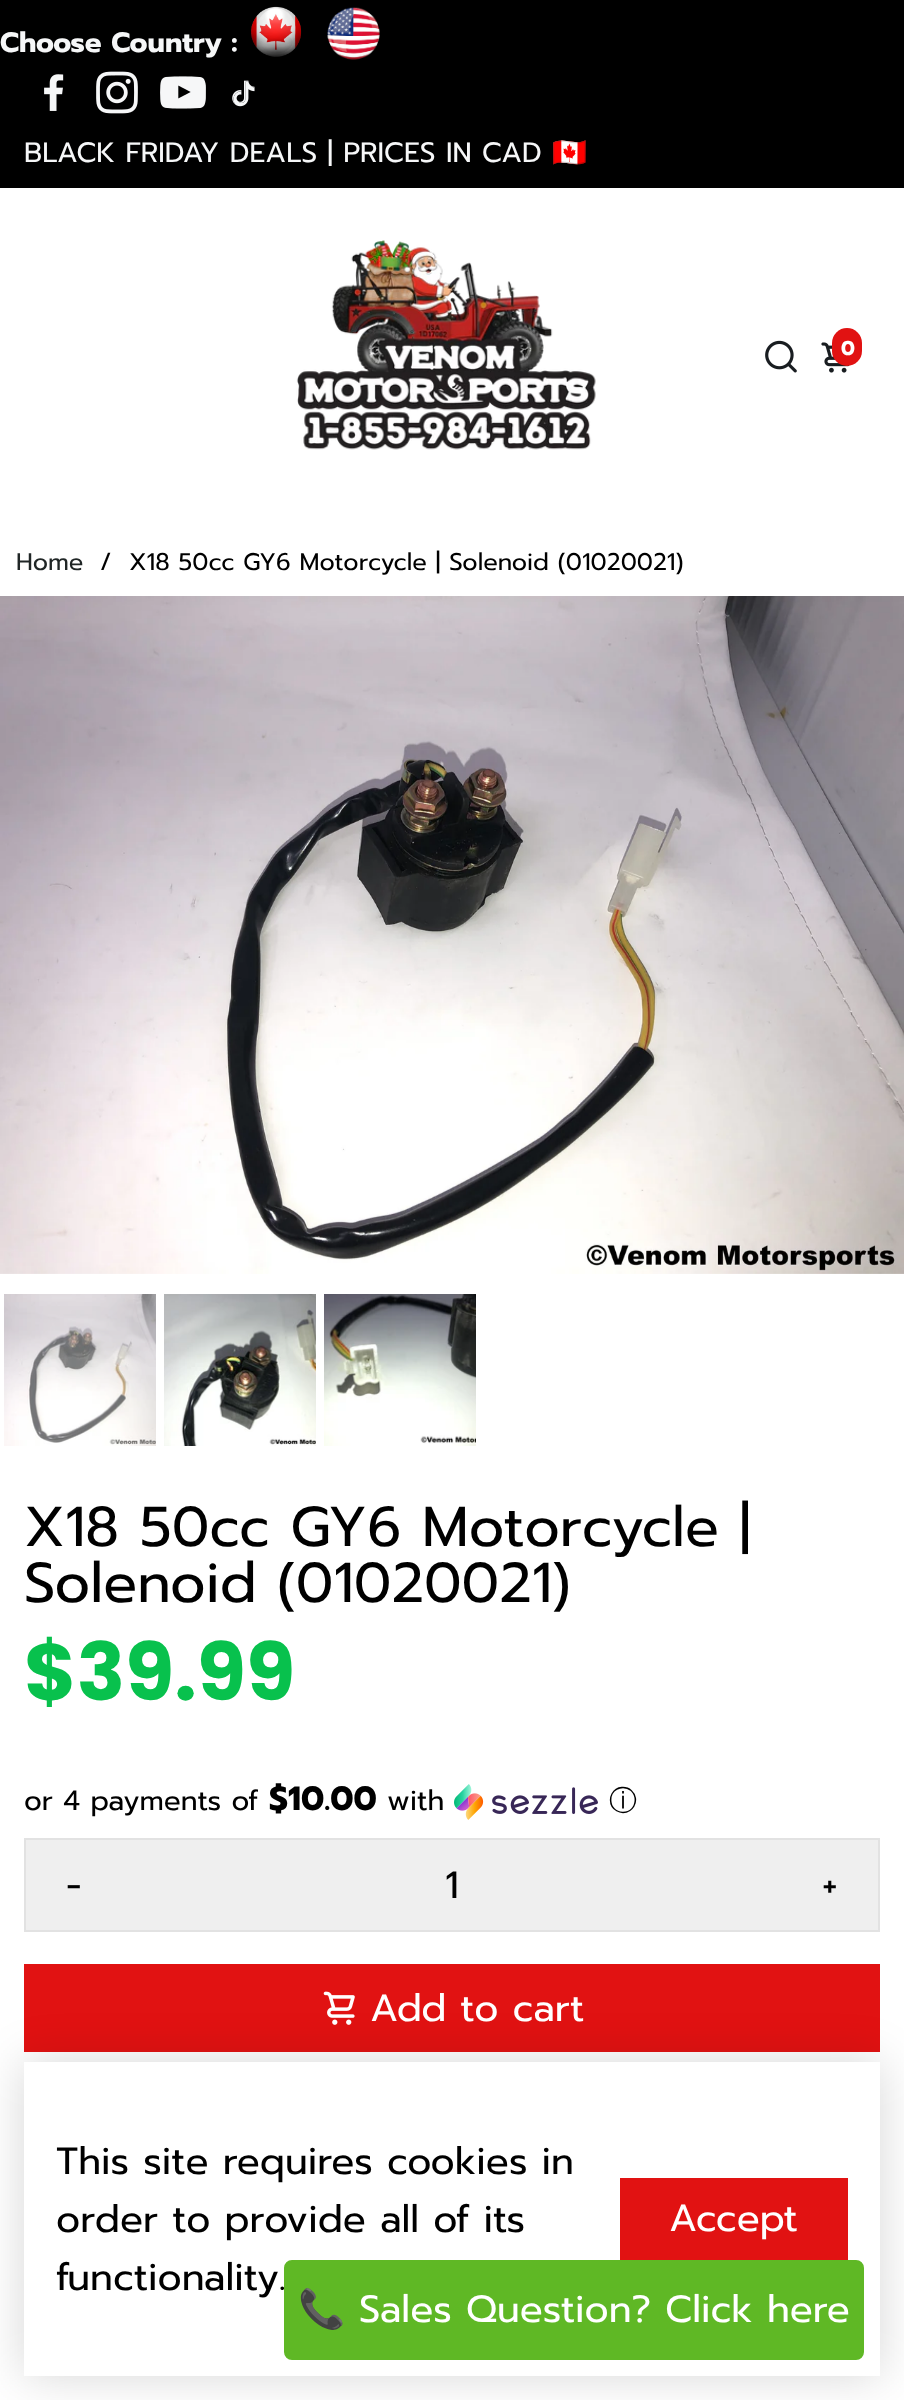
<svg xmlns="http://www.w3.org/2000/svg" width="904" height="2400">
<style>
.a{font:bold 28px Prompt;fill:#f6f7f8}
.b{font:28px Prompt;fill:#f6f7f8}
.c{font:28px Noto Color Emoji;fill:#f6f7f8}
.d{font:bold 20px Prompt;fill:#fff}
.e{font:24px Prompt;fill:#202626}
.f{font:24px Prompt;fill:#000}
.g{font:56px Prompt;fill:#000}
.h{font:bold 80px Poppins;fill:#08c14d}
.i{font:28px Prompt;fill:#000}
.j{font:bold 33.5px Prompt;fill:#000}
.k{font:500 28px WenQuanYi Zen Hei;fill:#000}
.l{font:38px Prompt;fill:#000}
.m{font:38px Prompt;fill:#fff}
.n{font:38px Noto Color Emoji;fill:#fff}
</style>
<rect width="100%" height="100%" fill="#fff"/>
<path fill="#000" d="M0 0h904v188H0z"/>
<image href="1.png" x="251" y="6" width="51" height="51"/>
<image href="2.png" x="327" y="7" width="53" height="53"/>
<image href="3.png" x="44" y="74" width="20" height="37"/>
<image href="4.png" x="96" y="71" width="42" height="43"/>
<image href="5.png" x="160" y="76" width="46" height="33"/>
<image href="6.png" x="232" y="80" width="23" height="27"/>
<image href="7.png" x="296" y="240" width="300" height="210"/>
<image href="8.png" x="765" y="340" width="32" height="33"/>
<image href="9.png" x="821" y="342" width="29" height="31"/>
<rect fill="#e11212" x="832" y="328" width="30" height="38" rx="15"/>
<image href="10.png" x="0" y="596" width="904" height="678"/>
<image href="11.png" x="4" y="1294" width="152" height="152"/>
<image href="12.png" x="164" y="1294" width="152" height="152"/>
<image href="13.png" x="324" y="1294" width="152" height="152"/>
<image href="14.png" x="454" y="1784" width="144" height="36"/>
<path fill="none" stroke="#e2e2e2" stroke-width="2" d="M25 1839h854v92H25z"/>
<path fill="#efefef" d="M26 1840h852v90H26z"/>
<path fill="#e11212" d="M24 1964h856v88H24z"/>
<image href="15.png" x="323" y="1991" width="32" height="34"/>
<path fill="#00000029" filter="blur(24px)" d="M24 2062h856v314H24z"/>
<path fill="#fff" d="M24 2062h856v314H24z"/>
<path fill="#e11212" d="M620 2178h228v82H620z"/>
<text class="a" x="0" y="52">Choose Country :</text>
<text class="b" x="24" y="162">BLACK FRIDAY DEALS | PRICES IN CAD</text>
<text class="c" x="552" y="162">🇨🇦</text>
<text class="d" x="841" y="355">0</text>
<text class="e" x="16" y="570">Home</text>
<text class="f" x="100" y="570">/</text>
<text class="f" x="129" y="570">X18 50cc GY6 Motorcycle | Solenoid (01020021)</text>
<text class="g" x="24" y="1546">X18 50cc GY6 Motorcycle |</text>
<text class="g" x="24" y="1602">Solenoid (01020021)</text>
<text class="h" x="24" y="1700">$39.99</text>
<text class="i" x="24" y="1810">or 4 payments of</text>
<text class="j" x="269" y="1810">$10.00</text>
<text class="i" x="387" y="1810">with</text>
<text class="k" x="609" y="1810">ⓘ</text>
<text class="l" x="66" y="1898">-</text>
<text class="l" x="445" y="1898">1</text>
<text class="l" x="822" y="1898">+</text>
<text class="m" x="370" y="2021">Add to cart</text>
<text class="l" x="56" y="2174">This site requires cookies in</text>
<text class="l" x="56" y="2232">order to provide all of its</text>
<text class="l" x="56" y="2290">functionality.</text>
<text class="m" x="669" y="2231">Accept</text>
<rect fill="#5fb825" stroke="#5fb825" stroke-width="2" x="285" y="2261" width="578" height="98" rx="7"/>
<text class="n" x="298" y="2322">📞</text>
<text class="m" x="359" y="2322">Sales Question? Click here</text>
</svg>
